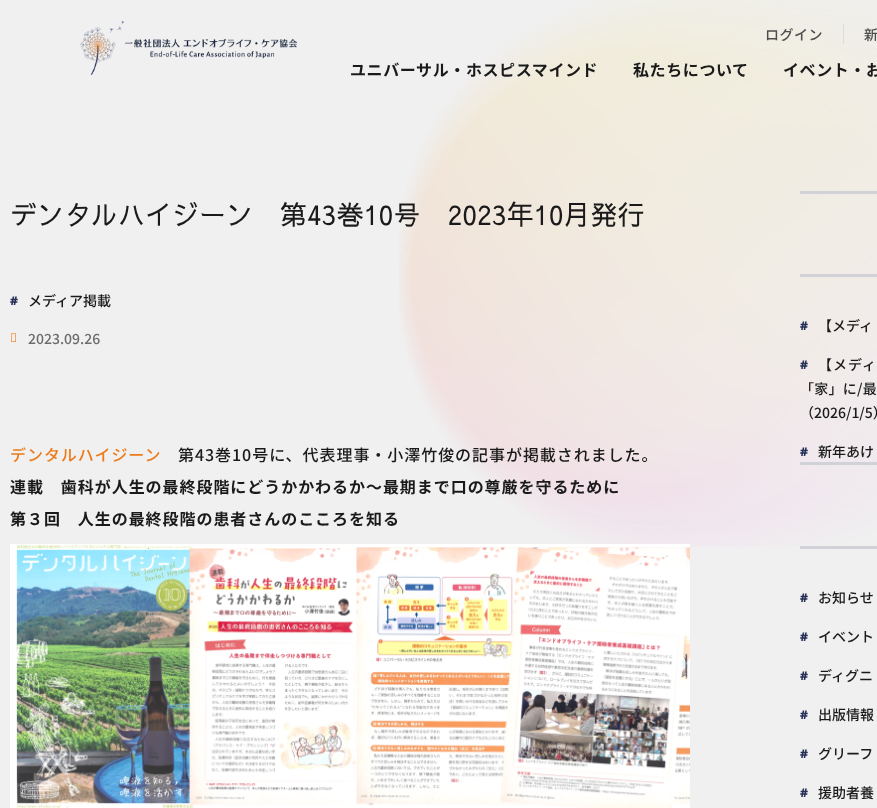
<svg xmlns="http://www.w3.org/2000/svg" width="877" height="808">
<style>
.a{font:500 14px Noto Sans JP;letter-spacing:0.5px;fill:#4e4e4e}
.b{font:bold 16px Noto Sans JP;letter-spacing:0.6px;fill:#1a1a1a}
.c{font:27px Sawarabi Gothic;fill:#1a1a1a}
.d{font:900 12px Noto Sans;letter-spacing:1px;fill:#242e56}
.e{font:500 14px Noto Sans JP;fill:#1a1a1a}
.f{font:500 14px Noto Sans JP;fill:#6c6c6c}
.g{font:500 16px Noto Sans JP;letter-spacing:0.95px;fill:#ed7b1b}
.h{font:500 16px Noto Sans JP;letter-spacing:0.95px;fill:#1a1a1a}
.i{font:bold 16px Noto Sans JP;letter-spacing:0.95px;fill:#1a1a1a}
.j{font:500 14px Noto Sans JP;letter-spacing:1px;fill:#1a1a1a}
.k{font:500 14px Noto Sans JP;letter-spacing:0.25px;fill:#1a1a1a}
</style>
<rect width="100%" height="100%" fill="#f0f0f0"/>
<image href="1.png" x="399" y="0" width="478" height="547"/>
<image href="2.png" x="80" y="21" width="217" height="54"/>
<path fill="#ddd" d="M843 24h1v20H843z"/>
<image href="3.png" x="11" y="333" width="5" height="9"/>
<image href="4.png" x="10" y="544" width="680" height="264"/>
<path fill="#d0d2d8" d="M800 191h77v3H800z"/>
<path fill="#d0d2d8" d="M800 274h77v3H800z"/>
<path fill="#d0d2d8" d="M800 462h77v3H800z"/>
<path fill="#d0d2d8" d="M800 546h77v3H800z"/>
<text class="a" x="765" y="40">ログイン</text>
<text class="a" x="864" y="40">新</text>
<text class="b" x="350" y="76">ユニバーサル・ホスピスマインド</text>
<text class="b" x="633" y="76">私たちについて</text>
<text class="b" x="783" y="76">イベント・お</text>
<text class="c" x="10" y="225">デンタルハイジーン　第43巻10号　2023年10月発行</text>
<text class="d" x="10" y="305">#</text>
<text class="e" x="28" y="306">メディア掲載</text>
<text class="f" x="28" y="344">2023.09.26</text>
<text class="g" x="10" y="461">デンタルハイジーン</text>
<text class="h" x="178" y="461">第43巻10号に、代表理事・小澤竹俊の記事が掲載されました。</text>
<text class="i" x="10" y="493">連載　歯科が人生の最終段階にどうかかわるか～最期まで口の尊厳を守るために</text>
<text class="i" x="10" y="525">第３回　人生の最終段階の患者さんのこころを知る</text>
<text class="d" x="800" y="330">#</text>
<text class="e" x="818" y="331" word-spacing="-1">【メディ</text>
<text class="d" x="800" y="369">#</text>
<text class="j" x="818" y="370">【メディ</text>
<text class="k" x="800" y="394">「家」に/最</text>
<text class="e" x="800" y="418">（2026/1/5）</text>
<text class="d" x="800" y="456">#</text>
<text class="e" x="818" y="457">新年あけ</text>
<text class="d" x="800" y="602">#</text>
<text class="e" x="818" y="603">お知らせ</text>
<text class="d" x="800" y="641">#</text>
<text class="e" x="818" y="642">イベント</text>
<text class="d" x="800" y="680">#</text>
<text class="e" x="818" y="681">ディグニ</text>
<text class="d" x="800" y="719">#</text>
<text class="e" x="818" y="720">出版情報</text>
<text class="d" x="800" y="758">#</text>
<text class="e" x="818" y="759">グリーフ</text>
<text class="d" x="800" y="797">#</text>
<text class="e" x="818" y="798">援助者養</text>
</svg>
